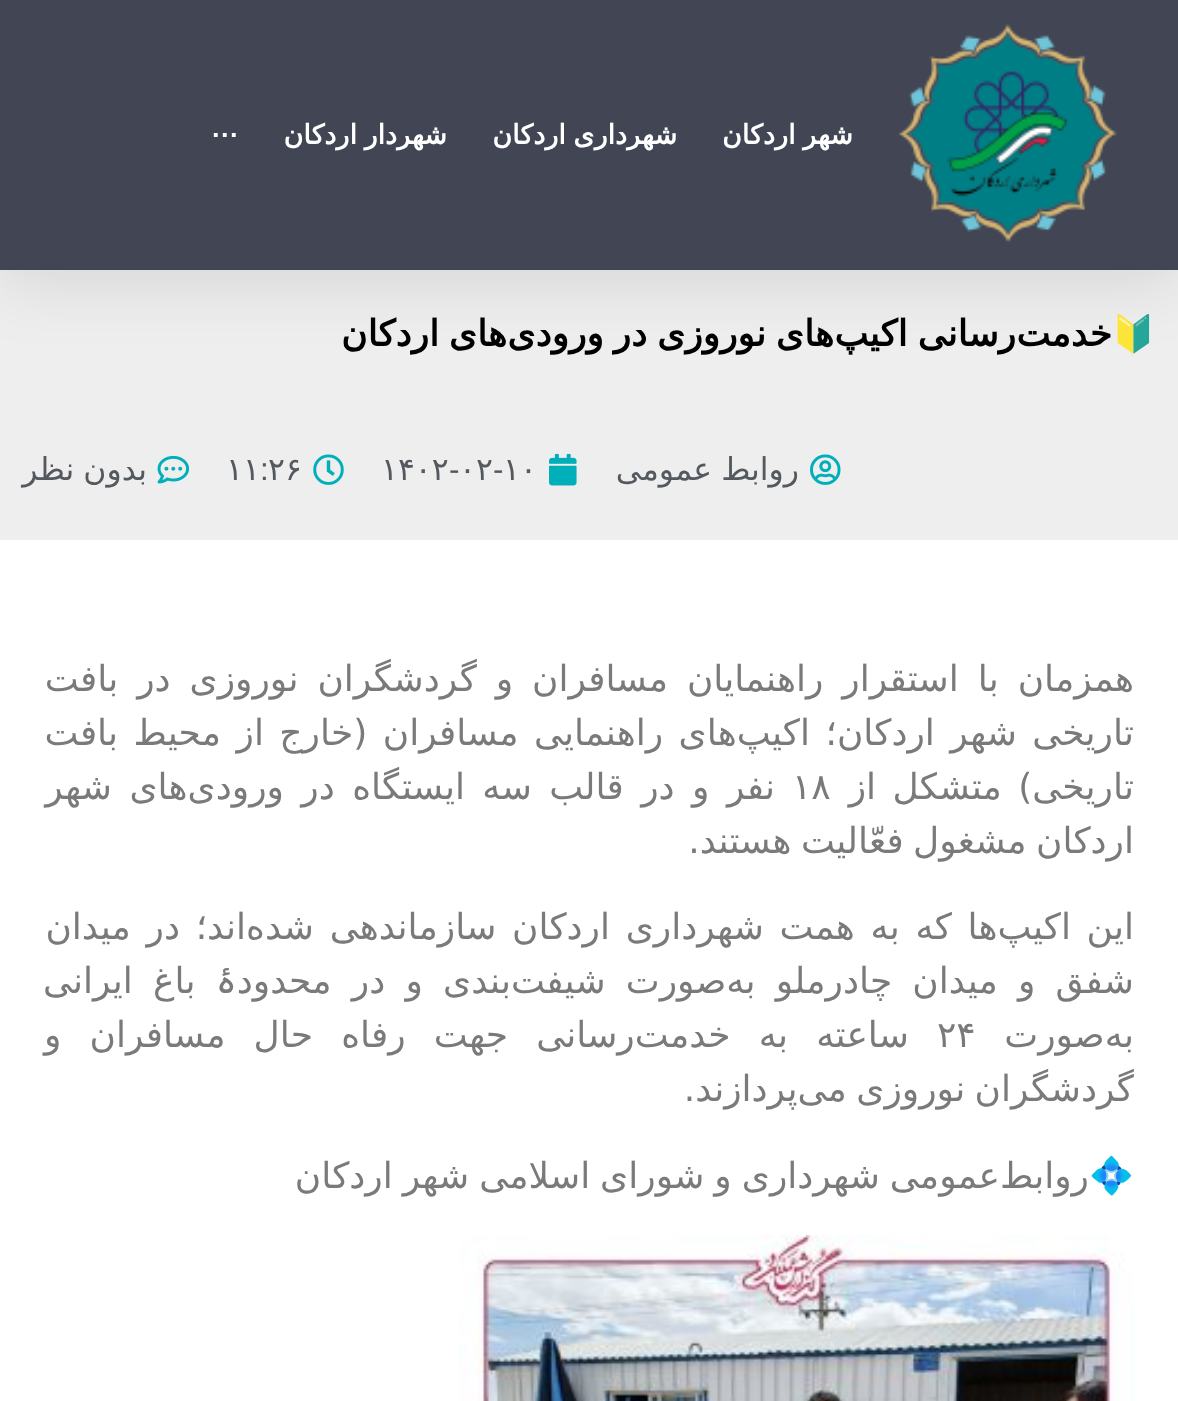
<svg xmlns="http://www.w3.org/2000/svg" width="1178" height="1401">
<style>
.a{font:bold 27px DejaVu Sans;direction:rtl;fill:#fff}
.b{font:bold 27px Liberation Sans;fill:#fff}
.c{font:bold 36px Noto Color Emoji;direction:rtl;fill:#000}
.d{font:bold 36px DejaVu Sans;direction:rtl;fill:#000}
.e{font:31.5px DejaVu Sans;direction:rtl;fill:#54595f}
.f{font:31.5px DejaVu Sans;fill:#54595f}
.g{font:31.5px Liberation Sans;fill:#54595f}
.h{font:36px DejaVu Sans;direction:rtl;fill:#7a7a7a}
.i{font:36px DejaVu Sans;fill:#7a7a7a}
.j{font:36px Noto Color Emoji;direction:rtl;fill:#7a7a7a}
</style>
<rect width="100%" height="100%" fill="#fff"/>
<path fill="#eee" d="M0 270h1178v270H0z"/>
<path fill="#0000001a" filter="blur(34px)" d="M0 11h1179v270H0z"/>
<path fill="#414554" d="M0 0h1178v270H0z"/>
<image href="1.png" x="898" y="24" width="219" height="219"/>
<image href="2.png" x="810" y="454" width="31" height="31"/>
<image href="3.png" x="549" y="453" width="28" height="33"/>
<image href="4.png" x="313" y="454" width="31" height="31"/>
<image href="5.png" x="157" y="455" width="33" height="29"/>
<image href="6.png" x="459" y="1235" width="675" height="166"/>
<text class="a" x="853" y="144" word-spacing="-1">شهر اردکان</text>
<text class="a" x="677" y="144" word-spacing="-1">شهرداری اردکان</text>
<text class="a" x="447" y="144" word-spacing="-1">شهردار اردکان</text>
<text class="b" x="212" y="144">···</text>
<text class="c" x="1156" y="346">🔰</text>
<text class="d" x="1112" y="346">خدمت</text>
<text class="d" x="834" y="346" word-spacing="-1.5">های نوروزی در ورودی</text>
<text class="d" x="1016" y="346" word-spacing="-1.5">رسانی اکیپ</text>
<text class="d" x="507" y="346" word-spacing="-1.5">های اردکان</text>
<text class="e" x="799" y="480" word-spacing="-1">روابط عمومی</text>
<text class="f" x="503" y="480">۱۰</text>
<text class="g" x="493" y="480">-</text>
<text class="f" x="459" y="480">۰۲</text>
<text class="g" x="449" y="480">-</text>
<text class="f" x="381" y="480">۱۴۰۲</text>
<text class="f" x="268" y="480">۲۶</text>
<text class="g" x="260" y="480">:</text>
<text class="f" x="226" y="480">۱۱</text>
<text class="e" x="147" y="480" word-spacing="-1">بدون نظر</text>
<text class="h" x="1134" y="691" word-spacing="7.5">همزمان با استقرار راهنمایان مسافران و گردشگران نوروزی در بافت</text>
<text class="h" x="1134" y="745" word-spacing="4">تاریخی شهر اردکان؛ اکیپ‌های راهنمایی مسافران (خارج از محیط بافت</text>
<text class="h" x="1134" y="799" word-spacing="5">تاریخی) متشکل از</text>
<text class="i" x="792" y="799">۱۸</text>
<text class="h" x="775" y="799" word-spacing="6">نفر و در قالب سه ایستگاه در ورودی‌های شهر</text>
<text class="h" x="1134" y="853" word-spacing="-2">اردکان مشغول فعّالیت هستند.</text>
<text class="h" x="1134" y="939" word-spacing="4.25">این اکیپ‌ها که به همت شهرداری اردکان سازماندهی شده‌اند؛ در میدان</text>
<text class="h" x="1134" y="993" word-spacing="8.75">شفق و میدان چادرملو به‌صورت شیفت‌بندی و در محدودۀ باغ ایرانی</text>
<text class="h" x="1134" y="1047">به‌صورت</text>
<text class="i" x="937" y="1047">۲۴</text>
<text class="h" x="909" y="1047" word-spacing="16.75">ساعته به خدمت‌رسانی جهت رفاه حال مسافران و</text>
<text class="h" x="1134" y="1101" word-spacing="-2">گردشگران نوروزی می‌پردازند.</text>
<text class="h" x="1089" y="1188" word-spacing="-1.5">روابط‌عمومی‌ شهرداری و شورای اسلامی شهر اردکان</text>
<text class="j" x="1134" y="1188">💠</text>
</svg>
